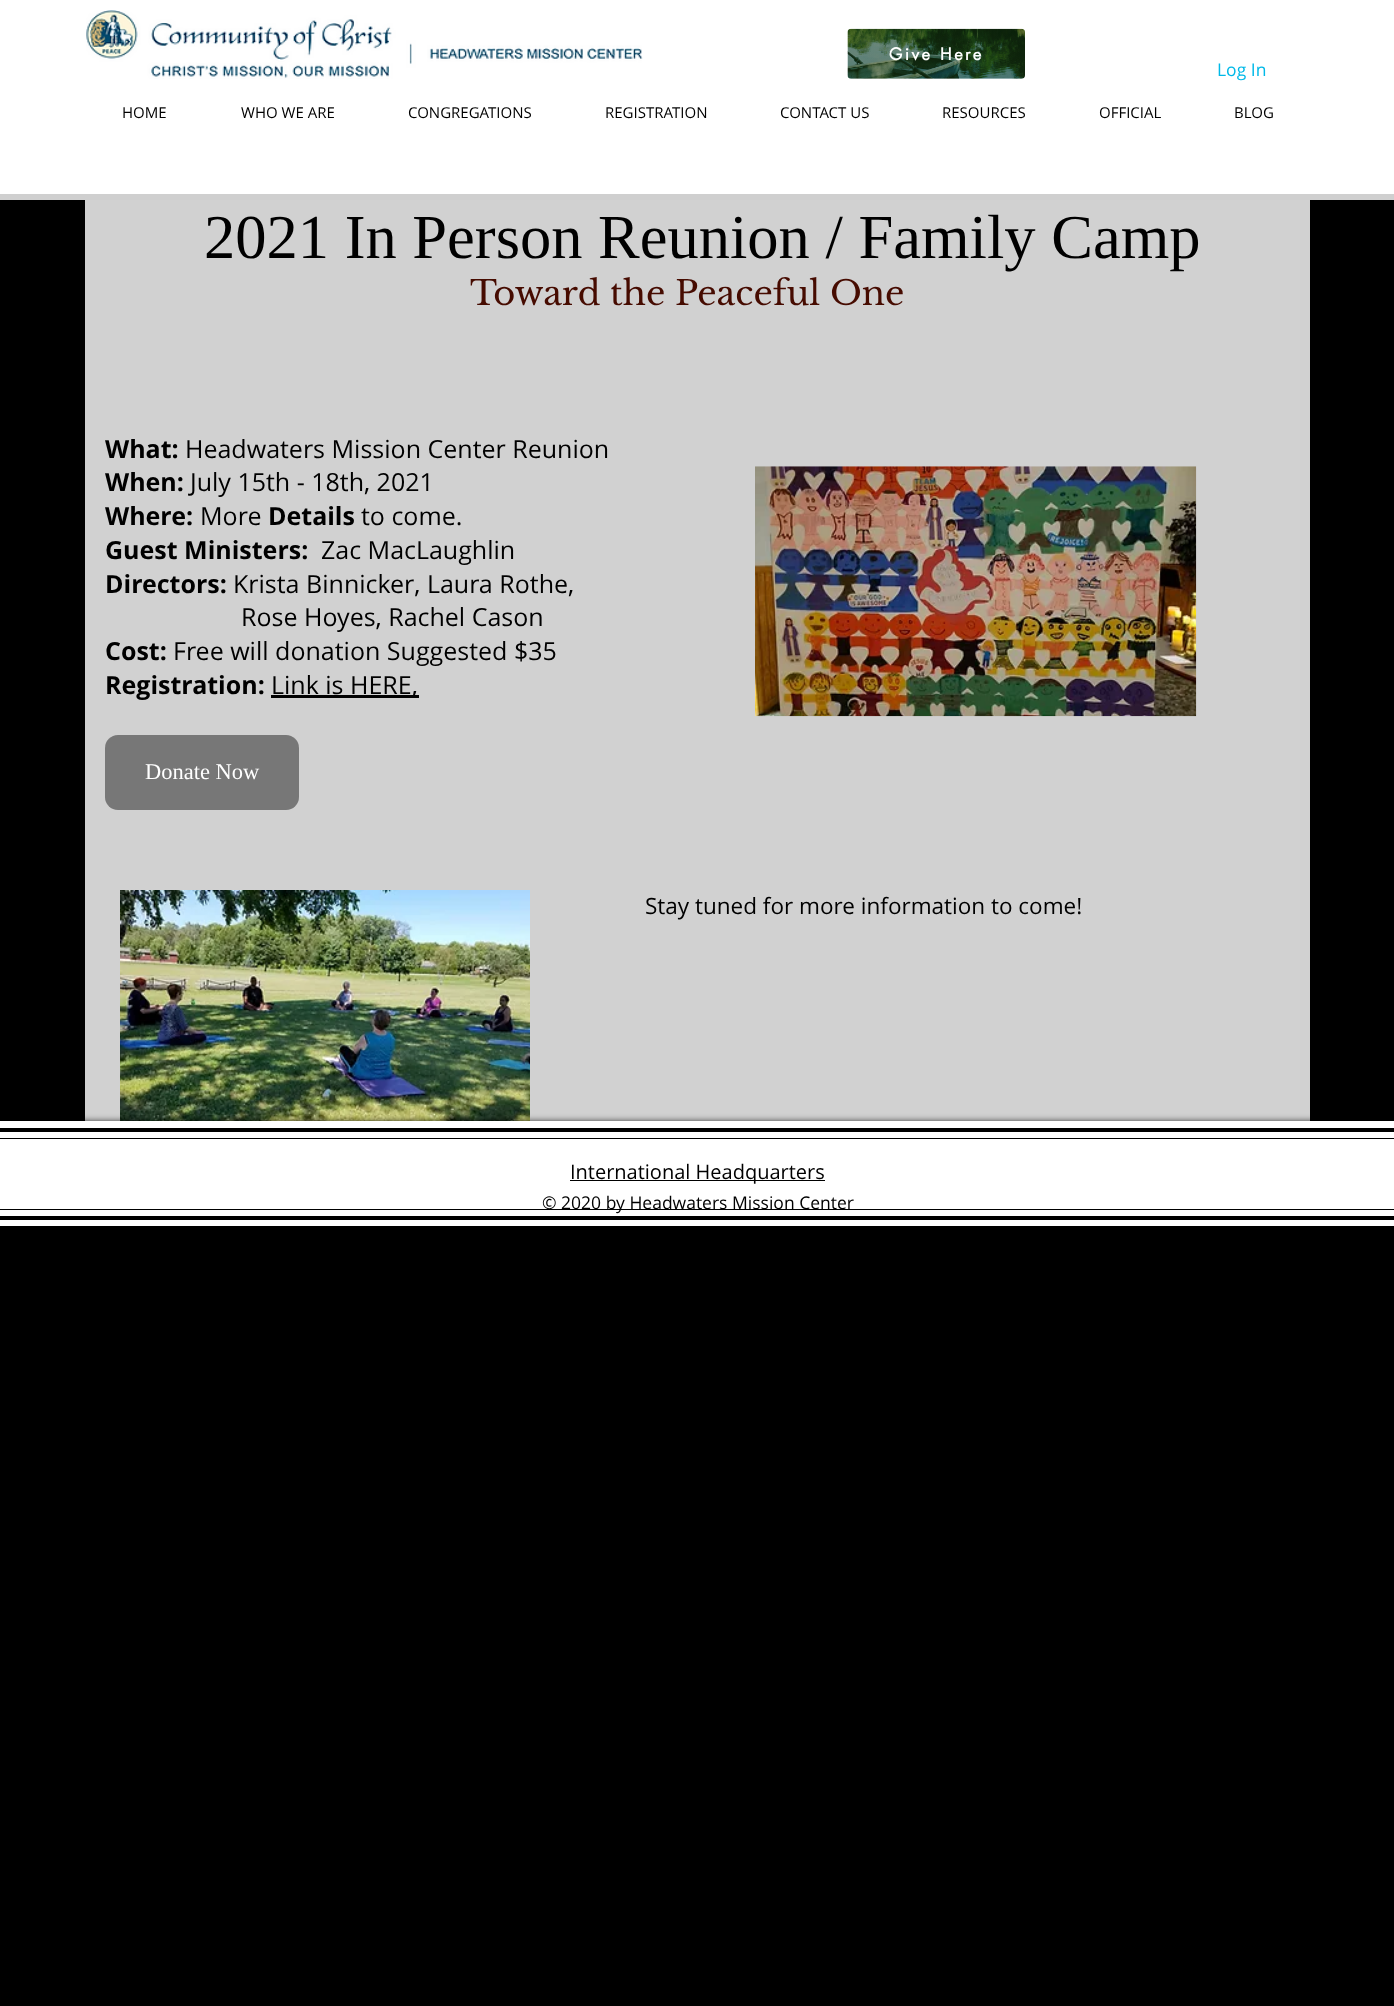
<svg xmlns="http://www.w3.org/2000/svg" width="1394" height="2006">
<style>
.a{font:bold 16.25px futura;letter-spacing:2.5px;fill:#fff}
.b{font:17.5px Open Sans;fill:#00b9e8}
.c{font:15px Open Sans;fill:#000}
.d{font:62.5px Liberation Serif;fill:#000}
.e{font:33.75px Libre Baskerville;fill:#460b00}
.f{font:bold 25px Open Sans;fill:#000}
.g{font:25px Open Sans;fill:#000}
.h{font:22.5px Liberation Serif;fill:#fff}
.i{font:22.5px Open Sans;fill:#000}
.j{font:20px Open Sans;fill:#000}
.k{font:17.5px Open Sans;fill:#000}
</style>
<rect width="100%" height="100%" fill="#000"/>
<path fill="#fff" d="M0 0h1394v194H0z"/>
<path fill="#cfcfcf" d="M0 194h1394v6H0z"/>
<image href="1.png" x="86" y="10" width="557" height="69"/>
<image href="2.png" x="847" y="28" width="178" height="51"/>
<path fill="#d1d1d1" d="M85 200h1225v921H85z"/>
<path fill="#000" d="M271 695h148v3H271z"/>
<image href="3.png" x="755" y="466" width="442" height="251"/>
<rect fill="#777" x="105" y="735" width="194" height="75" rx="13"/>
<image href="4.png" x="120" y="890" width="410" height="231"/>
<path fill="#000000b3" filter="blur(3px)" d="M0 1121h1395v105H0z"/>
<path fill="#fff" d="M0 1121h1394v105H0z"/>
<path fill="#000" d="M0 1128h1394v4H0z"/>
<path fill="#000" d="M0 1216h1394v4H0z"/>
<path fill="#000" d="M0 1138h1394v1H0z"/>
<path fill="#000" d="M0 1209h1394v1H0z"/>
<path fill="#000" d="M570 1180h255v1H570z"/>
<text class="a" x="889" y="60">Give Here</text>
<text class="b" x="1217" y="76">Log In</text>
<text class="c" x="122" y="118">HOME</text>
<text class="c" x="241" y="118">WHO WE ARE</text>
<text class="c" x="408" y="118">CONGREGATIONS</text>
<text class="c" x="605" y="118">REGISTRATION</text>
<text class="c" x="780" y="118">CONTACT US</text>
<text class="c" x="942" y="118">RESOURCES</text>
<text class="c" x="1099" y="118">OFFICIAL</text>
<text class="c" x="1234" y="118">BLOG</text>
<text class="d" x="204" y="258">2021 In Person Reunion / Family Camp</text>
<text class="e" x="470" y="305">Toward the Peaceful One</text>
<text class="f" x="105" y="458">What:</text>
<text class="g" x="185" y="458">Headwaters Mission Center Reunion</text>
<text class="f" x="105" y="491">When:</text>
<text class="g" x="190" y="491">July 15th - 18th, 2021</text>
<text class="f" x="105" y="525">Where:</text>
<text class="g" x="200" y="525">More</text>
<text class="f" x="268" y="525">Details</text>
<text class="g" x="361" y="525">to come.</text>
<text class="f" x="105" y="559">Guest Ministers:</text>
<text class="g" x="321" y="559">Zac MacLaughlin</text>
<text class="f" x="105" y="593">Directors:</text>
<text class="g" x="233" y="593">Krista Binnicker, Laura Rothe,</text>
<text class="g" x="241" y="626">Rose Hoyes, Rachel Cason</text>
<text class="f" x="105" y="660">Cost:</text>
<text class="g" x="173" y="660">Free will donation Suggested $35</text>
<text class="f" x="105" y="694">Registration:</text>
<text class="g" x="271" y="694">Link is HERE,</text>
<text class="h" x="145" y="779">Donate Now</text>
<text class="i" x="645" y="914">Stay tuned for more information to come!</text>
<text class="j" x="570" y="1179">International Headquarters</text>
<text class="k" x="542" y="1209">© 2020 by Headwaters Mission Center</text>
</svg>
